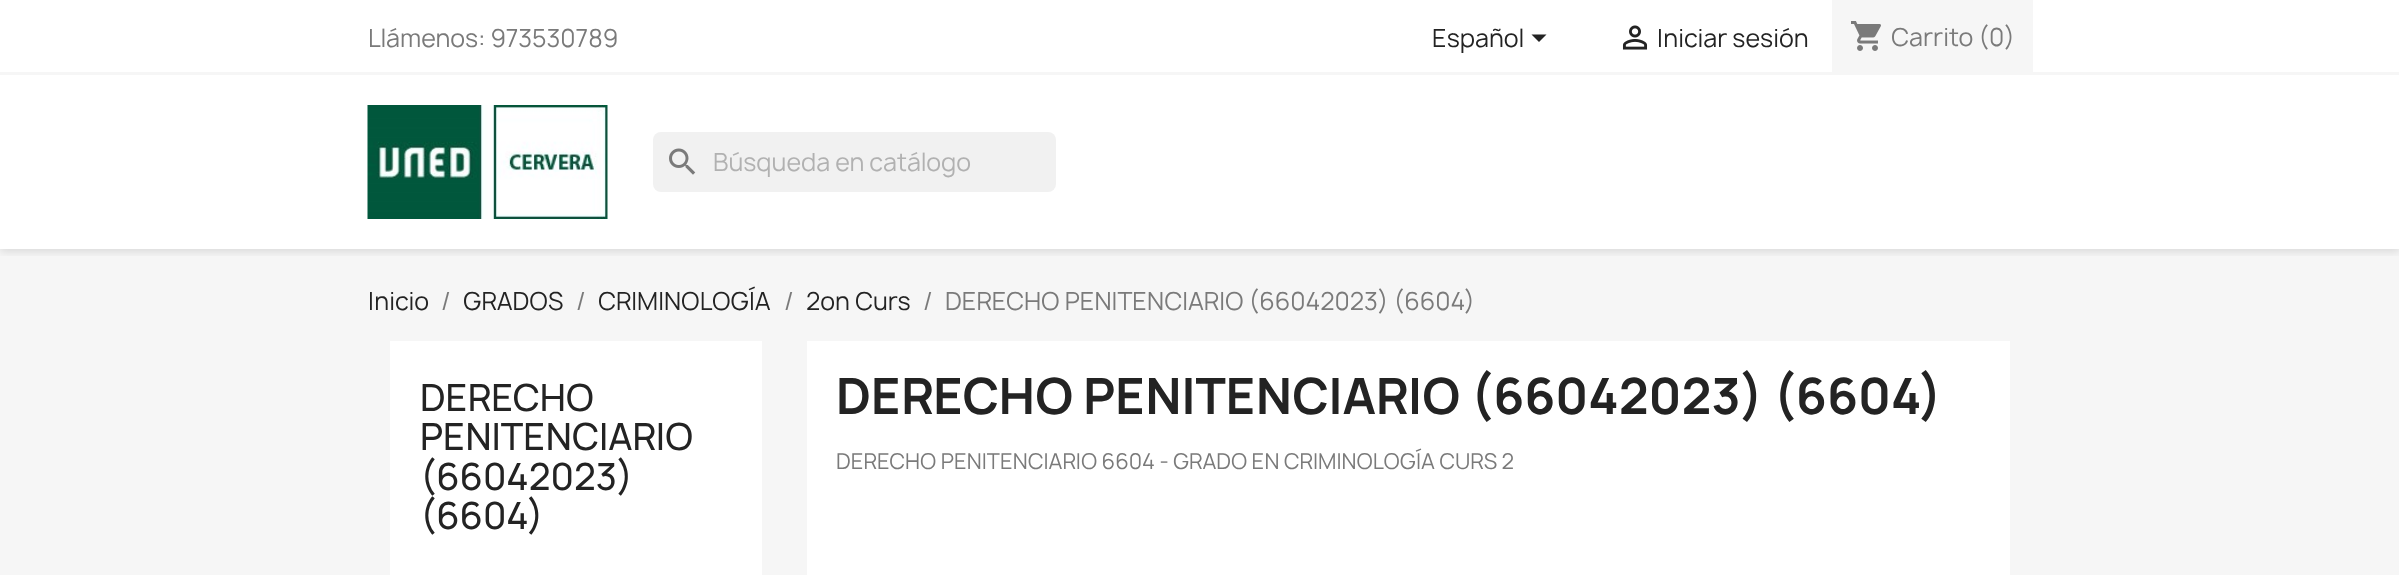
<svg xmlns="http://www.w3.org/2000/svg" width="2399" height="575">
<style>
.a{font:24px Manrope;fill:#7a7a7a}
.b{font:24px Manrope;fill:#232323}
.c{font:24px Manrope;fill:#b1b1b1}
.d{font:500 36px Manrope;fill:#232323}
.e{font:bold 48px Manrope;fill:#232323}
.f{font:21px Manrope;fill:#7a7a7a}
</style>
<defs>
<clipPath id="clip1"><path d="M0 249h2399v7H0z"/></clipPath>
</defs>
<rect width="100%" height="100%" fill="#fff"/>
<path fill="#f6f6f6" d="M0 249h2399v326H0z"/>
<g clip-path="url(#clip1)">
<path fill="#0000001c" filter="blur(4px)" d="M0 3h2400v249H0z"/>
</g>
<path fill="#f6f6f6" d="M0 72h2399v3H0z"/>
<path fill="#232323" d="M1531.5 34.5h15l-7.5 7.5z"/>
<image href="1.png" x="1622" y="25" width="26" height="25"/>
<path fill="#f6f6f6" d="M1832 0h201v72H1832z"/>
<image href="2.png" x="1851" y="21" width="30" height="30"/>
<image href="3.png" x="367" y="105" width="241" height="114"/>
<rect fill="#f1f1f1" x="653" y="132" width="403" height="60" rx="8"/>
<image href="4.png" x="669" y="148" width="27" height="27"/>
<path fill="#fff" d="M390 341h372v234H390z"/>
<path fill="#fff" d="M807 341h1203v234H807z"/>
<text class="a" x="368" y="47">Llámenos: 973530789</text>
<text class="b" x="1432" y="47">Español</text>
<text class="b" x="1657" y="47">Iniciar sesión</text>
<text class="a" x="1891" y="46">Carrito (0)</text>
<text class="c" x="713" y="171">Búsqueda en catálogo</text>
<text class="b" x="368" y="310">Inicio</text>
<text class="a" x="441" y="310">/</text>
<text class="b" x="463" y="310">GRADOS</text>
<text class="a" x="576" y="310">/</text>
<text class="b" x="598" y="310">CRIMINOLOGÍA</text>
<text class="a" x="784" y="310">/</text>
<text class="b" x="806" y="310">2on Curs</text>
<text class="a" x="923" y="310">/</text>
<text class="a" x="945" y="310">DERECHO PENITENCIARIO (66042023) (6604)</text>
<text class="d" x="420" y="411">DERECHO</text>
<text class="d" x="420" y="450">PENITENCIARIO</text>
<text class="d" x="420" y="490">(66042023)</text>
<text class="d" x="420" y="529">(6604)</text>
<text class="e" x="836" y="414">DERECHO PENITENCIARIO (66042023) (6604)</text>
<text class="f" x="836" y="469">DERECHO PENITENCIARIO 6604 - GRADO EN CRIMINOLOGÍA CURS 2</text>
</svg>
